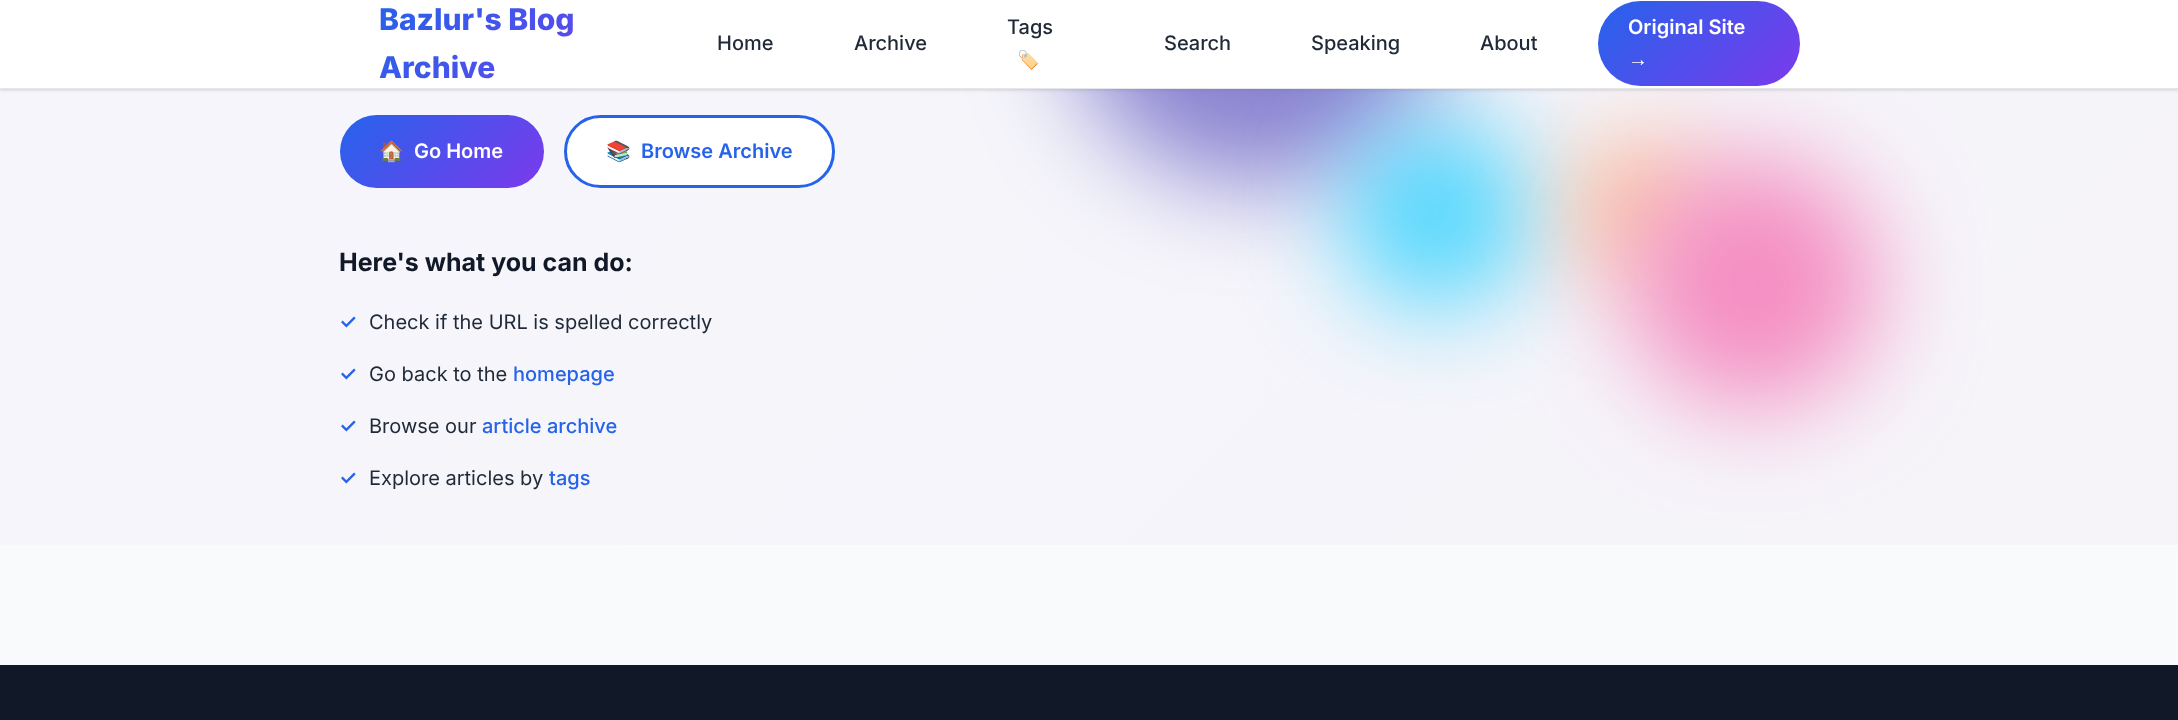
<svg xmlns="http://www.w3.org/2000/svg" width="2178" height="720">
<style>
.a{font:800 30px Inter;fill:url(#g1)}
.b{font:500 20px Inter;fill:#1f2937}
.c{font:18px Noto Color Emoji;fill:#1f2937}
.d{font:600 20px Inter;fill:#fff}
.e{font:bold 20px Liberation Sans;fill:#fff}
.f{font:bold 20px Noto Color Emoji;fill:#fff}
.g{font:bold 20px Noto Color Emoji;fill:#2563eb}
.h{font:600 20px Inter;fill:#2563eb}
.i{font:bold 25px Inter;fill:#111827}
.j{font:bold 20px 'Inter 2';fill:#2563eb}
.k{font:20px Inter;fill:#1f2937}
.l{font:500 20px Inter;fill:#2563eb}
</style>
<defs>
<linearGradient id="g1" gradientUnits="userSpaceOnUse" x1="435" y1="-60" x2="642" y2="147"><stop offset="0" stop-color="#2563eb"/><stop offset="1" stop-color="#7c3aed"/></linearGradient>
<linearGradient id="g2" gradientUnits="userSpaceOnUse" x1="332" y1="-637" x2="1847" y2="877"><stop offset="0" stop-color="#f5f6fc"/><stop offset="1" stop-color="#f6f4f9"/></linearGradient>
<linearGradient id="g3" gradientUnits="userSpaceOnUse" x1="1627" y1="-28" x2="1771" y2="116"><stop offset="0" stop-color="#2563eb"/><stop offset="1" stop-color="#7c3aed"/></linearGradient>
<linearGradient id="g4" gradientUnits="userSpaceOnUse" x1="373" y1="82" x2="511" y2="220"><stop offset="0" stop-color="#2563eb"/><stop offset="1" stop-color="#7c3aed"/></linearGradient>
</defs>
<rect width="100%" height="100%" fill="#f9fafb"/>
<path fill="url(#g2)" d="M0 89h2178v456H0z"/>
<path fill="#0000000f" filter="blur(1px)" d="M0 1h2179v89H0z"/>
<path fill="#0000001a" filter="blur(2px)" d="M0 1h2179v89H0z"/>
<rect fill="#6e65c6cc" filter="blur(50px)" x="1068" y="-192" width="375" height="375" rx="187.5"/>
<rect fill="#28cffecc" filter="blur(50px)" x="1343" y="120" width="187" height="188" rx="93.5"/>
<rect fill="#fca96dcc" filter="blur(50px)" x="1573" y="145" width="125" height="125" rx="62.5"/>
<rect fill="#f48ec2" filter="blur(50px)" x="1628" y="158" width="250" height="250" rx="125"/>
<path fill="#fff" d="M0 0h2178v88H0z"/>
<path fill="#e5e7eb" d="M0 88h2178v1H0z"/>
<rect fill="url(#g3)" x="1598" y="1" width="202" height="85" rx="42.5"/>
<rect fill="url(#g4)" x="340" y="115" width="204" height="73" rx="36.5"/>
<rect fill="#fff" stroke="#2563eb" stroke-width="3" x="565.5" y="116.5" width="268" height="70" rx="35"/>
<path fill="#111827" d="M0 665h2178v55H0z"/>
<text class="a" x="379" y="30">Bazlur's Blog</text>
<text class="a" x="379" y="78">Archive</text>
<text class="b" x="717" y="50">Home</text>
<text class="b" x="854" y="50">Archive</text>
<text class="b" x="1007" y="34">Tags</text>
<text class="c" x="1017" y="66">🏷️</text>
<text class="b" x="1164" y="50">Search</text>
<text class="b" x="1311" y="50">Speaking</text>
<text class="b" x="1480" y="50">About</text>
<text class="d" x="1628" y="34">Original Site</text>
<text class="e" x="1628" y="66">→</text>
<text class="f" x="379" y="158">🏠</text>
<text class="d" x="414" y="158">Go Home</text>
<text class="g" x="606" y="158">📚</text>
<text class="h" x="641" y="158">Browse Archive</text>
<text class="i" x="339" y="271">Here's what you can do:</text>
<text class="j" x="339" y="329">✓</text>
<text class="k" x="369" y="329">Check if the URL is spelled correctly</text>
<text class="j" x="339" y="381">✓</text>
<text class="k" x="369" y="381">Go back to the</text>
<text class="l" x="513" y="381">homepage</text>
<text class="j" x="339" y="433">✓</text>
<text class="k" x="369" y="433">Browse our</text>
<text class="l" x="482" y="433">article archive</text>
<text class="j" x="339" y="485">✓</text>
<text class="k" x="369" y="485">Explore articles by</text>
<text class="l" x="549" y="485">tags</text>
</svg>
